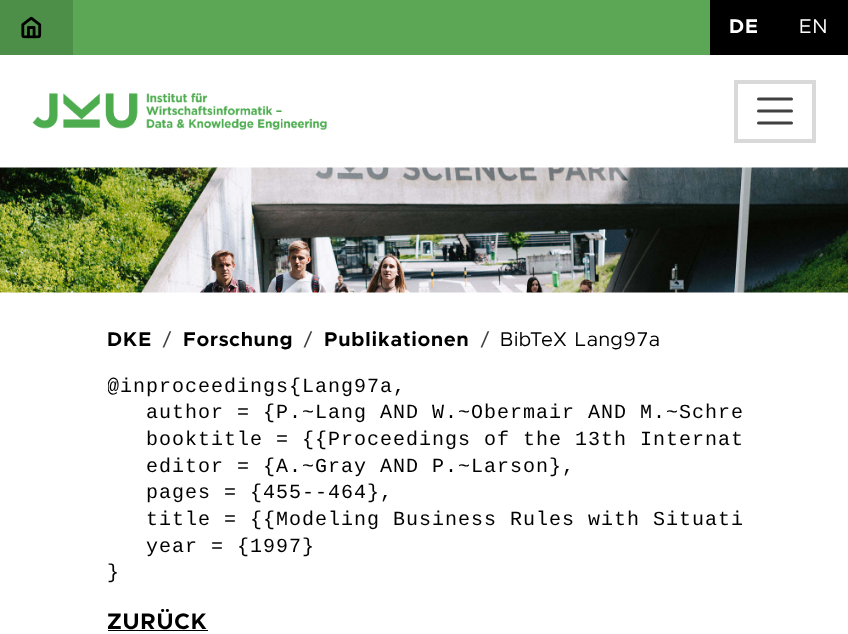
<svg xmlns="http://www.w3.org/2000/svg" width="848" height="634">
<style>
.a{font:bold 20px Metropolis;letter-spacing:1px;fill:#fff}
.b{font:20px Metropolis;letter-spacing:1px;fill:#fff}
.c{font:bold 20px Metropolis;letter-spacing:1px;fill:#000}
.d{font:20px Metropolis;letter-spacing:1px;fill:#404040}
.e{font:20px Metropolis;letter-spacing:1px;fill:#000}
.f{font:20px Liberation Mono;letter-spacing:1px;fill:#000}
.g{font:bold 22.5px Metropolis;letter-spacing:1px;fill:#000}
</style>
<defs>
<clipPath id="clip1"><path d="M108 374h635v214H108z"/></clipPath>
</defs>
<rect width="100%" height="100%" fill="#fff"/>
<path fill="#5ba755" d="M73 0h637v55H73z"/>
<path fill="#4d8e48" d="M0 0h73v55H0z"/>
<image href="1.png" x="21" y="16" width="21" height="23"/>
<path fill="#000" d="M710 0h138v55H710z"/>
<image href="2.png" x="32" y="93" width="295" height="37"/>
<path fill="none" stroke="#d9d9d9" stroke-width="4" d="M736 82h78v59H736z"/>
<path fill="none" stroke="#404040" stroke-width="3" stroke-linecap="round" d="M758.5 99h33m-33 12h33m-33 12h33"/>
<image href="3.png" x="0" y="167" width="848" height="126"/>
<path fill="#000" d="M108 630h100v1H108z"/>
<text class="a" x="729" y="33">DE</text>
<text class="b" x="799" y="33">EN</text>
<text class="c" x="107" y="346">DKE</text>
<text class="d" x="162" y="346">/</text>
<text class="c" x="183" y="346">Forschung</text>
<text class="d" x="303" y="346">/</text>
<text class="c" x="324" y="346">Publikationen</text>
<text class="d" x="480" y="346">/</text>
<text class="e" x="500" y="346">BibTeX Lang97a</text>
<g clip-path="url(#clip1)">
<text class="f" x="107" y="392">@inproceedings{Lang97a,</text>
</g>
<text class="f" x="146" y="418">author = {P.~Lang AND W.~Obermair AND M.~Schre</text>
<text class="f" x="146" y="445">booktitle = {{Proceedings of the 13th Internat</text>
<text class="f" x="146" y="472">editor = {A.~Gray AND P.~Larson},</text>
<text class="f" x="146" y="498">pages = {455--464},</text>
<text class="f" x="146" y="525">title = {{Modeling Business Rules with Situati</text>
<text class="f" x="146" y="552">year = {1997}</text>
<text class="f" x="107" y="578">}</text>
<text class="g" x="107" y="629">ZURÜCK</text>
</svg>
